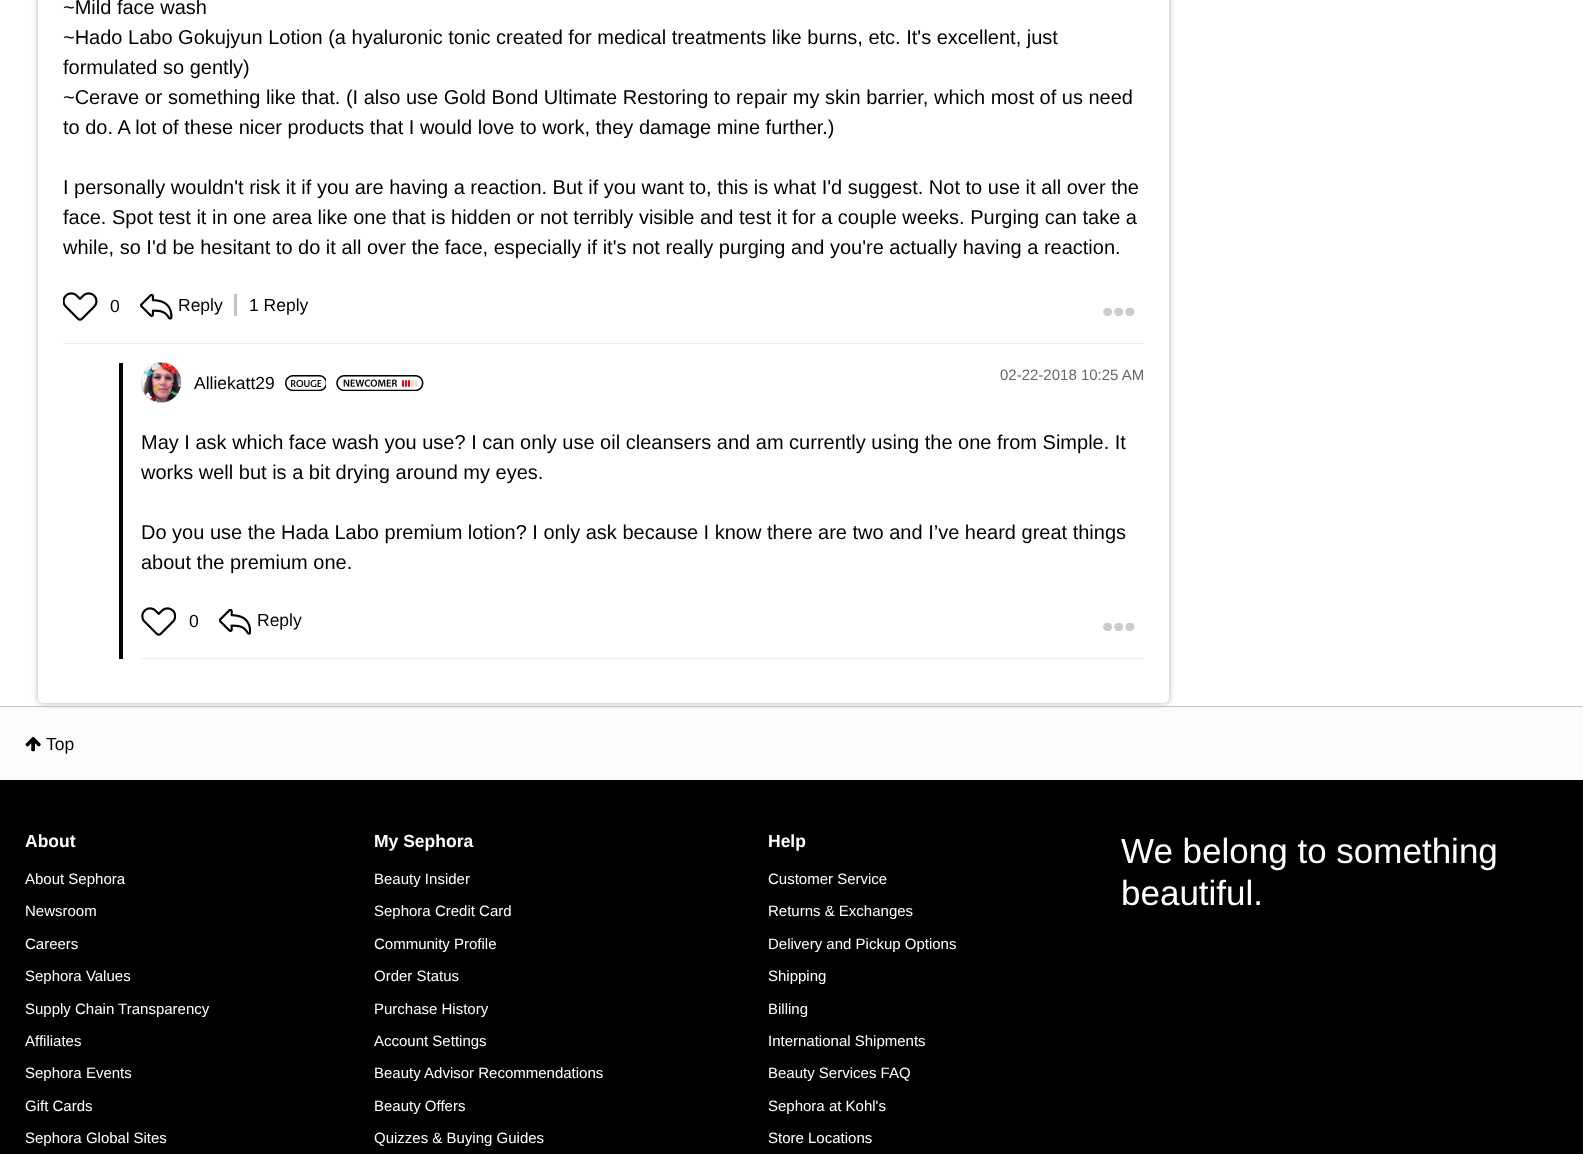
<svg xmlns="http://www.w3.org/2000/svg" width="1583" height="1154">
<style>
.a{font:20px Liberation Sans;fill:#000}
.b{font:17.5px Liberation Sans;fill:#000}
.c{font:15px Liberation Sans;fill:#666}
.d{font:bold 17.5px Liberation Sans;fill:#fff}
.e{font:15px Liberation Sans;fill:#fff}
.f{font:35px Liberation Sans;fill:#fff}
</style>
<defs>
<clipPath id="clip1"><path d="M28 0h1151v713h-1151zm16-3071h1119c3.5 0 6 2.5 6 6v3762c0 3.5-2.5 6-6 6h-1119c-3.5 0-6-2.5-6-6v-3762c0-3.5 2.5-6 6-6z" clip-rule="evenodd"/></clipPath>
</defs>
<rect width="100%" height="100%" fill="#fff"/>
<path fill="#fbfbfb" d="M0 707h1583v73H0z"/>
<path fill="#c4c4c4" d="M0 706h1583v1H0z"/>
<g clip-path="url(#clip1)">
<rect fill="#b1b1b1" filter="blur(3px)" x="38" y="-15" width="1131" height="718" rx="6"/>
</g>
<path fill="#eee" d="M63 343h1081v1H63z"/>
<image href="1.png" x="63" y="292" width="35" height="29"/>
<image href="2.png" x="140" y="294" width="33" height="26"/>
<path fill="#c4c4c4" d="M234 294h3v22H234z"/>
<image href="3.png" x="1103" y="308" width="32" height="8"/>
<path fill="#000" d="M119 363h4v296H119z"/>
<path fill="#eee" d="M141 658h1003v1H141z"/>
<rect fill="#c4c4c4" filter="blur(0.5px)" x="141" y="363" width="40" height="40" rx="20"/>
<image href="4.png" x="141" y="362" width="41" height="41"/>
<image href="5.png" x="285" y="375" width="41" height="16"/>
<image href="6.png" x="336" y="375" width="88" height="16"/>
<image href="7.png" x="141" y="607" width="35" height="29"/>
<image href="8.png" x="219" y="609" width="32" height="26"/>
<image href="3.png" x="1103" y="623" width="32" height="8"/>
<image href="9.png" x="25" y="736" width="16" height="16"/>
<path fill="#000" d="M0 780h1583v374H0z"/>
<text class="a" x="63" y="14">~Mild face wash</text>
<text class="a" x="63" y="44">~Hado Labo Gokujyun Lotion (a hyaluronic tonic created for medical treatments like burns, etc. It's excellent, just</text>
<text class="a" x="63" y="74">formulated so gently)</text>
<text class="a" x="63" y="104">~Cerave or something like that. (I also use Gold Bond Ultimate Restoring to repair my skin barrier, which most of us need</text>
<text class="a" x="63" y="134">to do. A lot of these nicer products that I would love to work, they damage mine further.)</text>
<text class="a" x="63" y="194">I personally wouldn't risk it if you are having a reaction. But if you want to, this is what I'd suggest. Not to use it all over the</text>
<text class="a" x="63" y="224">face. Spot test it in one area like one that is hidden or not terribly visible and test it for a couple weeks. Purging can take a</text>
<text class="a" x="63" y="254">while, so I'd be hesitant to do it all over the face, especially if it's not really purging and you're actually having a reaction.</text>
<text class="b" x="110" y="312">0</text>
<text class="b" x="178" y="311">Reply</text>
<text class="b" x="249" y="311">1 Reply</text>
<text class="b" x="194" y="389">Alliekatt29</text>
<text class="c" x="1000" y="380">02-22-2018 10:25 AM</text>
<text class="a" x="141" y="449">May I ask which face wash you use? I can only use oil cleansers and am currently using the one from Simple. It</text>
<text class="a" x="141" y="479">works well but is a bit drying around my eyes.</text>
<text class="a" x="141" y="539">Do you use the Hada Labo premium lotion? I only ask because I know there are two and I’ve heard great things</text>
<text class="a" x="141" y="569">about the premium one.</text>
<text class="b" x="189" y="627">0</text>
<text class="b" x="257" y="626">Reply</text>
<text class="b" x="46" y="750">Top</text>
<text class="d" x="25" y="847">About</text>
<text class="e" x="25" y="884">About Sephora</text>
<text class="e" x="25" y="916">Newsroom</text>
<text class="e" x="25" y="949">Careers</text>
<text class="e" x="25" y="981">Sephora Values</text>
<text class="e" x="25" y="1014">Supply Chain Transparency</text>
<text class="e" x="25" y="1046">Affiliates</text>
<text class="e" x="25" y="1078">Sephora Events</text>
<text class="e" x="25" y="1111">Gift Cards</text>
<text class="e" x="25" y="1143">Sephora Global Sites</text>
<text class="d" x="374" y="847">My Sephora</text>
<text class="e" x="374" y="884">Beauty Insider</text>
<text class="e" x="374" y="916">Sephora Credit Card</text>
<text class="e" x="374" y="949">Community Profile</text>
<text class="e" x="374" y="981">Order Status</text>
<text class="e" x="374" y="1014">Purchase History</text>
<text class="e" x="374" y="1046">Account Settings</text>
<text class="e" x="374" y="1078">Beauty Advisor Recommendations</text>
<text class="e" x="374" y="1111">Beauty Offers</text>
<text class="e" x="374" y="1143">Quizzes &amp; Buying Guides</text>
<text class="d" x="768" y="847">Help</text>
<text class="e" x="768" y="884">Customer Service</text>
<text class="e" x="768" y="916">Returns &amp; Exchanges</text>
<text class="e" x="768" y="949">Delivery and Pickup Options</text>
<text class="e" x="768" y="981">Shipping</text>
<text class="e" x="768" y="1014">Billing</text>
<text class="e" x="768" y="1046">International Shipments</text>
<text class="e" x="768" y="1078">Beauty Services FAQ</text>
<text class="e" x="768" y="1111">Sephora at Kohl's</text>
<text class="e" x="768" y="1143">Store Locations</text>
<text class="f" x="1121" y="863">We belong to something</text>
<text class="f" x="1121" y="905">beautiful.</text>
</svg>
